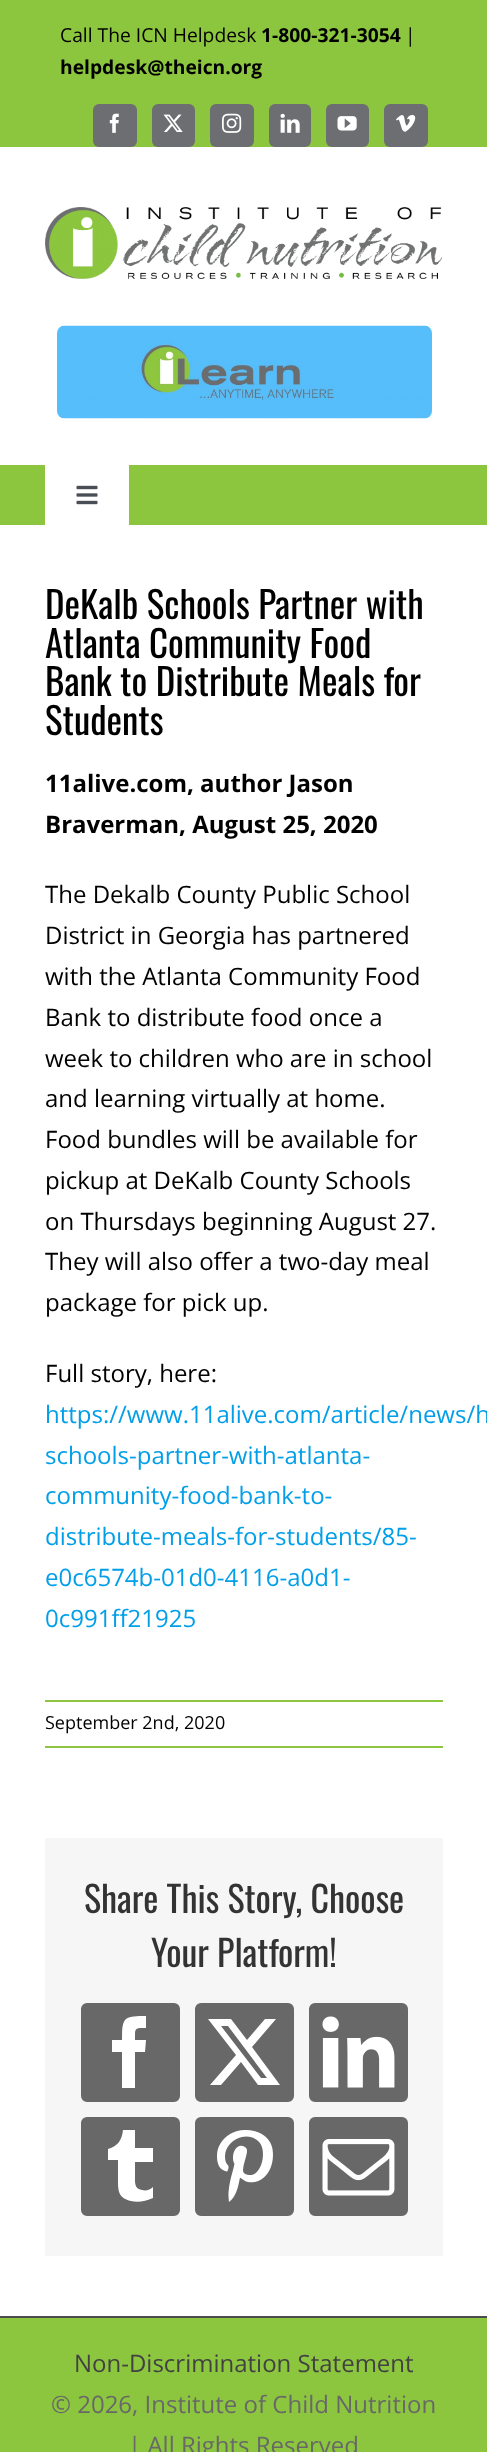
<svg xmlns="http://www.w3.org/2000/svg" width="487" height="2452">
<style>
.a{font:19.25px Open Sans;fill:#000}
.b{font:bold 19.25px Open Sans;fill:#000}
.c{font:37px Oswald;fill:#000}
.d{font:bold 24px Open Sans;fill:#000}
.e{font:24px Open Sans;fill:#000}
.f{font:24px Open Sans;fill:#029fe8}
.g{font:18px Open Sans;fill:#000}
.h{font:36px Oswald;fill:#333}
.i{font:24px Open Sans;fill:#424242}
.j{font:24px Open Sans;fill:#686868}
</style>
<rect width="100%" height="100%" fill="#fff"/>
<path fill="#8cc63f" d="M0 0h487v147H0z"/>
<rect fill="#6d6e71" x="93" y="104" width="44" height="43" rx="6"/>
<image href="1.png" x="109" y="113" width="10" height="20"/>
<rect fill="#6d6e71" x="152" y="104" width="43" height="43" rx="6"/>
<image href="2.png" x="163" y="114" width="20" height="18"/>
<rect fill="#6d6e71" x="210" y="104" width="44" height="43" rx="6"/>
<image href="3.png" x="222" y="113" width="20" height="20"/>
<rect fill="#6d6e71" x="269" y="104" width="42" height="43" rx="6"/>
<image href="4.png" x="280" y="113" width="20" height="20"/>
<rect fill="#6d6e71" x="326" y="104" width="43" height="43" rx="6"/>
<image href="5.png" x="337" y="116" width="20" height="15"/>
<rect fill="#6d6e71" x="384" y="104" width="44" height="43" rx="6"/>
<image href="6.png" x="396" y="115" width="20" height="17"/>
<image href="7.png" x="45" y="207" width="398" height="72"/>
<image href="8.png" x="57" y="325" width="375" height="94"/>
<path fill="#8cc63f" d="M0 465h487v60H0z"/>
<path fill="#fff" d="M45 465h84v60H45z"/>
<image href="9.png" x="76" y="485" width="22" height="20"/>
<path fill="#8cc63f" d="M45 1700h398v2H45z"/>
<path fill="#8cc63f" d="M45 1746h398v2H45z"/>
<path fill="#f6f6f6" d="M45 1838h398v418H45z"/>
<rect fill="#686868" stroke="#686868" stroke-width="2" x="82" y="2004" width="97" height="97" rx="5"/>
<path fill="#fff" d="M135 2088h-13v-36h-10v-12h10c0-23 2-24 24-24v12c-12 0-11 0-11 12h11l-1 12h-10z"/>
<rect fill="#686868" stroke="#686868" stroke-width="2" x="196" y="2004" width="97" height="97" rx="5"/>
<path fill="#fff" d="M265 2019h11l-24 28l28 38h-22l-17-23l-20 23h-11l26-30l-28-36h23l16 21zm-4 59h6l-39-52h-7z"/>
<rect fill="#686868" stroke="#686868" stroke-width="2" x="310" y="2004" width="97" height="97" rx="5"/>
<image href="10.png" x="322" y="2016" width="73" height="72"/>
<rect fill="#686868" stroke="#686868" stroke-width="2" x="82" y="2118" width="97" height="97" rx="5"/>
<path fill="#fff" d="M135 2162v13c0 7-1 14 7 15c4 1 8 0 11-3v11c-7 3-15 5-22 3c-12-3-13-9-13-20v-21h-10v-11c10-3 14-9 15-19h12v18h18v14z"/>
<rect fill="#686868" stroke="#686868" stroke-width="2" x="196" y="2118" width="97" height="97" rx="5"/>
<image href="11.png" x="217" y="2130" width="56" height="72"/>
<rect fill="#686868" stroke="#686868" stroke-width="2" x="310" y="2118" width="97" height="97" rx="5"/>
<image href="12.png" x="322" y="2139" width="73" height="57"/>
<path fill="#8cc63f" d="M0 2318h487v134H0z"/>
<path fill="#4b4c4d" d="M0 2316h487v2H0z"/>
<text class="a" x="60" y="42">Call The ICN Helpdesk</text>
<text class="b" x="261" y="42">1-800-321-3054</text>
<text class="a" x="405" y="42">|</text>
<text class="b" x="60" y="74">helpdesk@theicn.org</text>
<text class="c" x="45" y="619">DeKalb Schools Partner with</text>
<text class="c" x="45" y="658">Atlanta Community Food</text>
<text class="c" x="45" y="696">Bank to Distribute Meals for</text>
<text class="c" x="45" y="735">Students</text>
<text class="d" x="45" y="792">11alive.com, author Jason</text>
<text class="d" x="45" y="833">Braverman, August 25, 2020</text>
<text class="e" x="45" y="903">The Dekalb County Public School</text>
<text class="e" x="45" y="944">District in Georgia has partnered</text>
<text class="e" x="45" y="985">with the Atlanta Community Food</text>
<text class="e" x="45" y="1026">Bank to distribute food once a</text>
<text class="e" x="45" y="1067">week to children who are in school</text>
<text class="e" x="45" y="1107">and learning virtually at home.</text>
<text class="e" x="45" y="1148">Food bundles will be available for</text>
<text class="e" x="45" y="1189">pickup at DeKalb County Schools</text>
<text class="e" x="45" y="1230">on Thursdays beginning August 27.</text>
<text class="e" x="45" y="1270">They will also offer a two-day meal</text>
<text class="e" x="45" y="1311">package for pick up.</text>
<text class="e" x="45" y="1382">Full story, here:</text>
<text class="f" x="45" y="1423">https://www.11alive.com/article/news/h</text>
<text class="f" x="45" y="1464">schools-partner-with-atlanta-</text>
<text class="f" x="45" y="1504">community-food-bank-to-</text>
<text class="f" x="45" y="1545">distribute-meals-for-students/85-</text>
<text class="f" x="45" y="1586">e0c6574b-01d0-4116-a0d1-</text>
<text class="f" x="45" y="1627">0c991ff21925</text>
<text class="g" x="45" y="1729">September 2nd, 2020</text>
<text class="h" x="84" y="1913">Share This Story, Choose</text>
<text class="h" x="151" y="1967">Your Platform!</text>
<text class="i" x="74" y="2372">Non-Discrimination Statement</text>
<text class="j" x="51" y="2413">© 2026, Institute of Child Nutrition</text>
<text class="j" x="128" y="2454">| All Rights Reserved</text>
</svg>
